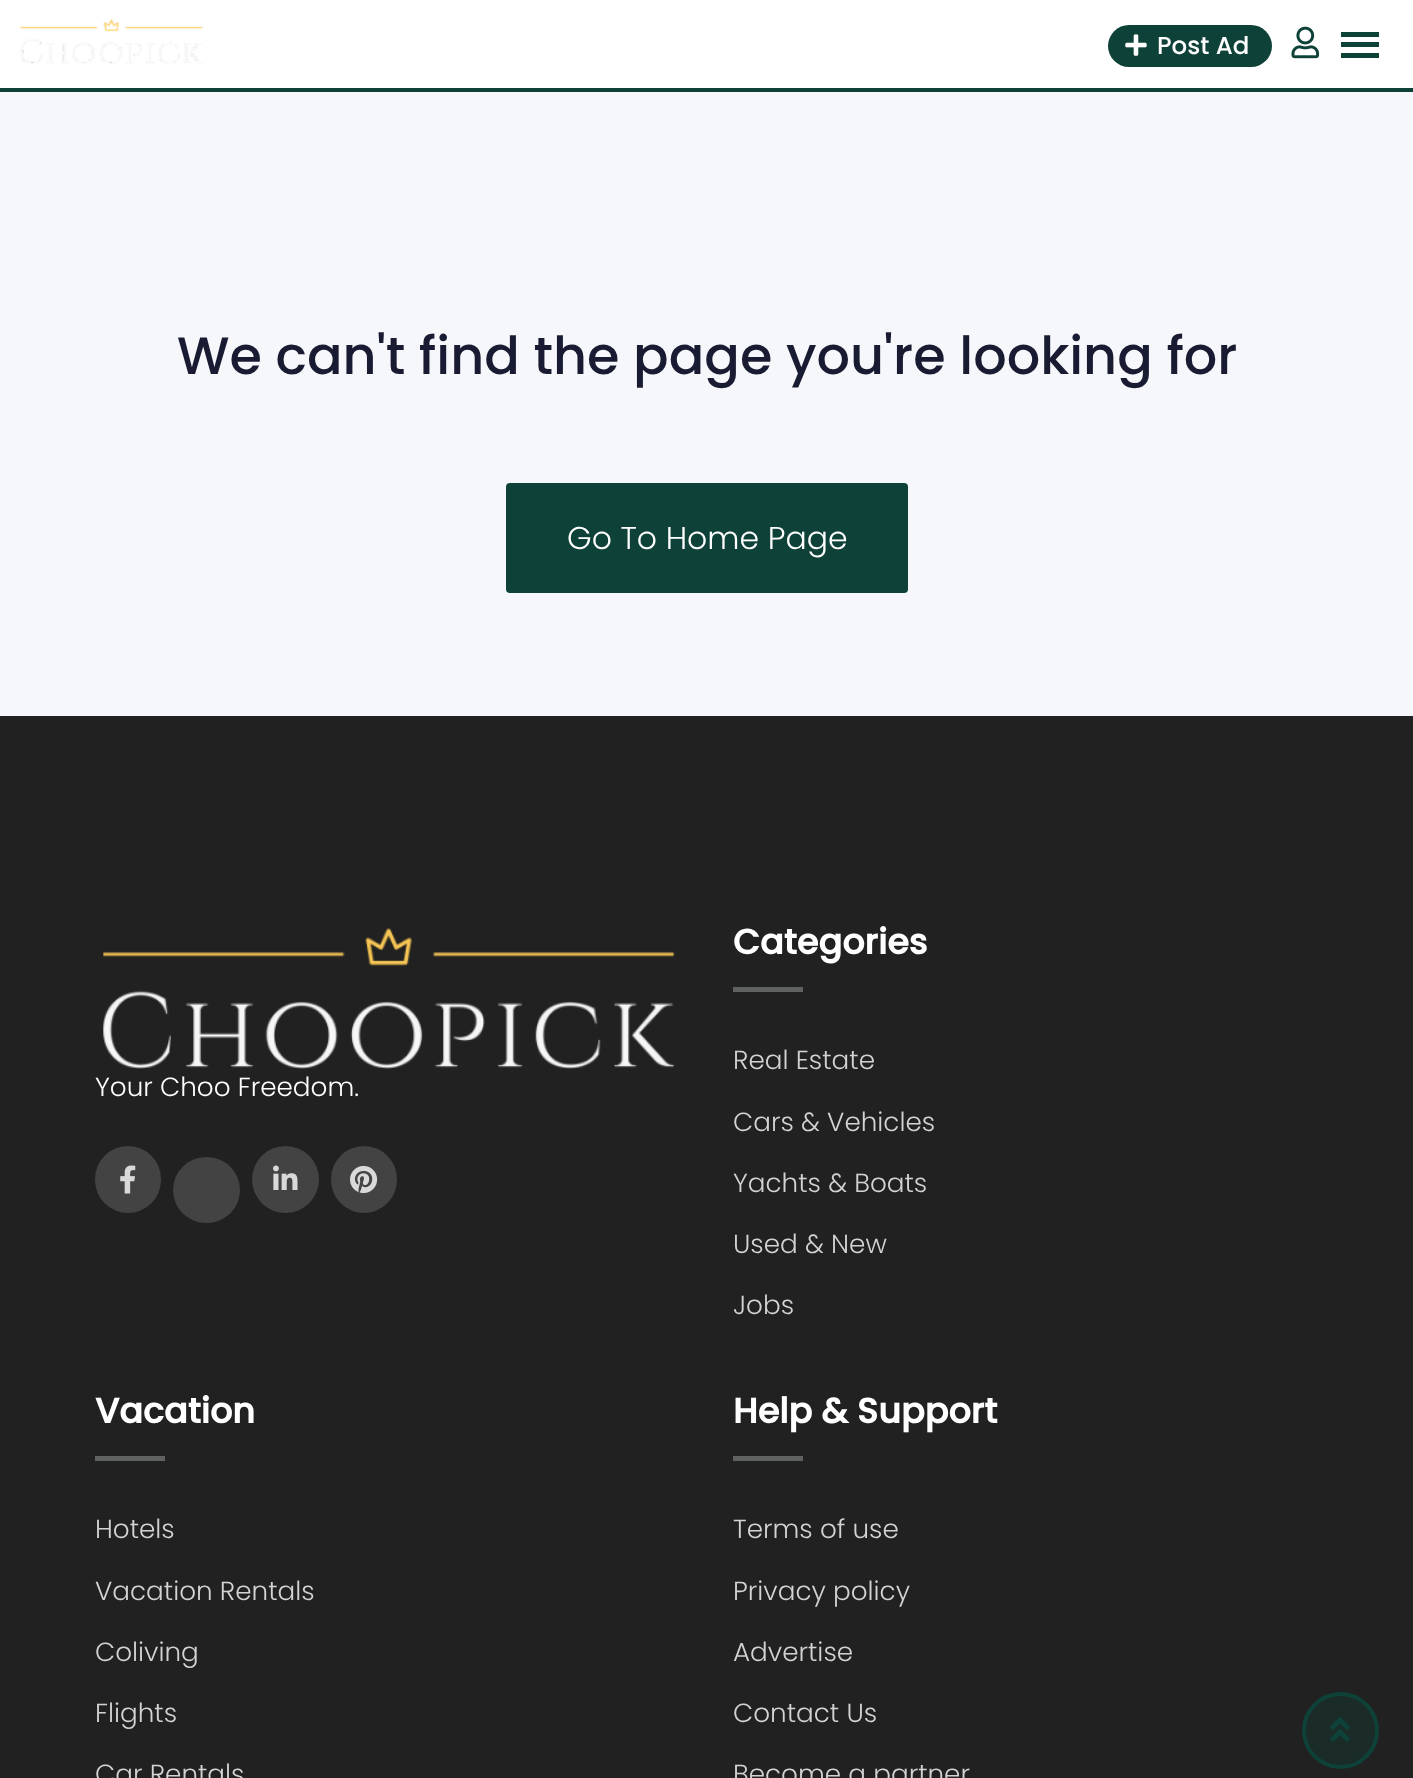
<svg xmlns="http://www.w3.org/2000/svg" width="1413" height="1778">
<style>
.a{font:500 24.5px Poppins;fill:#fff}
.b{font:500 52.5px Poppins;fill:#181b31}
.c{font:300 31.5px Poppins;fill:#fff}
.d{font:300 26.25px Poppins;fill:#fff}
.e{font:bold 35px Poppins;fill:#fff}
.f{font:300 26.25px Poppins;fill:#d3d3d3}
</style>
<rect width="100%" height="100%" fill="#fff"/>
<path fill="#0e4239" d="M0 88h1413v4H0z"/>
<image href="1.png" x="19" y="19" width="185" height="45"/>
<rect fill="#0e4239" x="1108" y="25" width="164" height="42" rx="21"/>
<image href="2.png" x="1125" y="34" width="22" height="22"/>
<image href="3.png" x="1291" y="26" width="29" height="33"/>
<path fill="#0e4239" d="M1341 32h38v5H1341z"/>
<path fill="#0e4239" d="M1341 42h38v5H1341z"/>
<path fill="#0e4239" d="M1341 53h38v5H1341z"/>
<path fill="#f5f7fa" d="M0 92h1413v624H0z"/>
<rect fill="#0e4239" x="506" y="483" width="402" height="110" rx="4"/>
<path fill="#212121" d="M0 716h1413v1062H0z"/>
<image href="4.png" x="103" y="928" width="572" height="141"/>
<rect fill="#434343" x="95" y="1146" width="66" height="67" rx="33"/>
<image href="5.png" x="120" y="1165" width="16" height="29"/>
<rect fill="#434343" x="173" y="1157" width="67" height="66" rx="33"/>
<circle fill="#434343" cx="285.5" cy="1179.5" r="33.5"/>
<image href="6.png" x="273" y="1165" width="25" height="25"/>
<rect fill="#434343" x="331" y="1146" width="66" height="67" rx="33"/>
<image href="7.png" x="350" y="1165" width="28" height="29"/>
<path fill="#606262" d="M733 987h70v5H733z"/>
<path fill="#606262" d="M95 1456h70v5H95z"/>
<path fill="#606262" d="M733 1456h70v5H733z"/>
<circle fill="#1b2b28" stroke="#0e4239" stroke-width="4" cx="1340.5" cy="1730.5" r="36.5"/>
<image href="8.png" x="1330" y="1717" width="20" height="25"/>
<text class="a" x="1157" y="54">Post Ad</text>
<text class="b" x="177" y="374">We can't find the page you're looking for</text>
<text class="c" x="567" y="549">Go To Home Page</text>
<text class="d" x="95" y="1096">Your Choo Freedom.</text>
<text class="e" x="733" y="954">Categories</text>
<text class="f" x="733" y="1069">Real Estate</text>
<text class="f" x="733" y="1131">Cars &amp; Vehicles</text>
<text class="f" x="733" y="1192">Yachts &amp; Boats</text>
<text class="f" x="733" y="1253">Used &amp; New</text>
<text class="f" x="733" y="1314">Jobs</text>
<text class="e" x="95" y="1423">Vacation</text>
<text class="f" x="95" y="1538">Hotels</text>
<text class="f" x="95" y="1600">Vacation Rentals</text>
<text class="f" x="95" y="1661">Coliving</text>
<text class="f" x="95" y="1722">Flights</text>
<text class="f" x="95" y="1783">Car Rentals</text>
<text class="e" x="733" y="1423">Help &amp; Support</text>
<text class="f" x="733" y="1538">Terms of use</text>
<text class="f" x="733" y="1600">Privacy policy</text>
<text class="f" x="733" y="1661">Advertise</text>
<text class="f" x="733" y="1722">Contact Us</text>
<text class="f" x="733" y="1783">Become a partner</text>
</svg>
